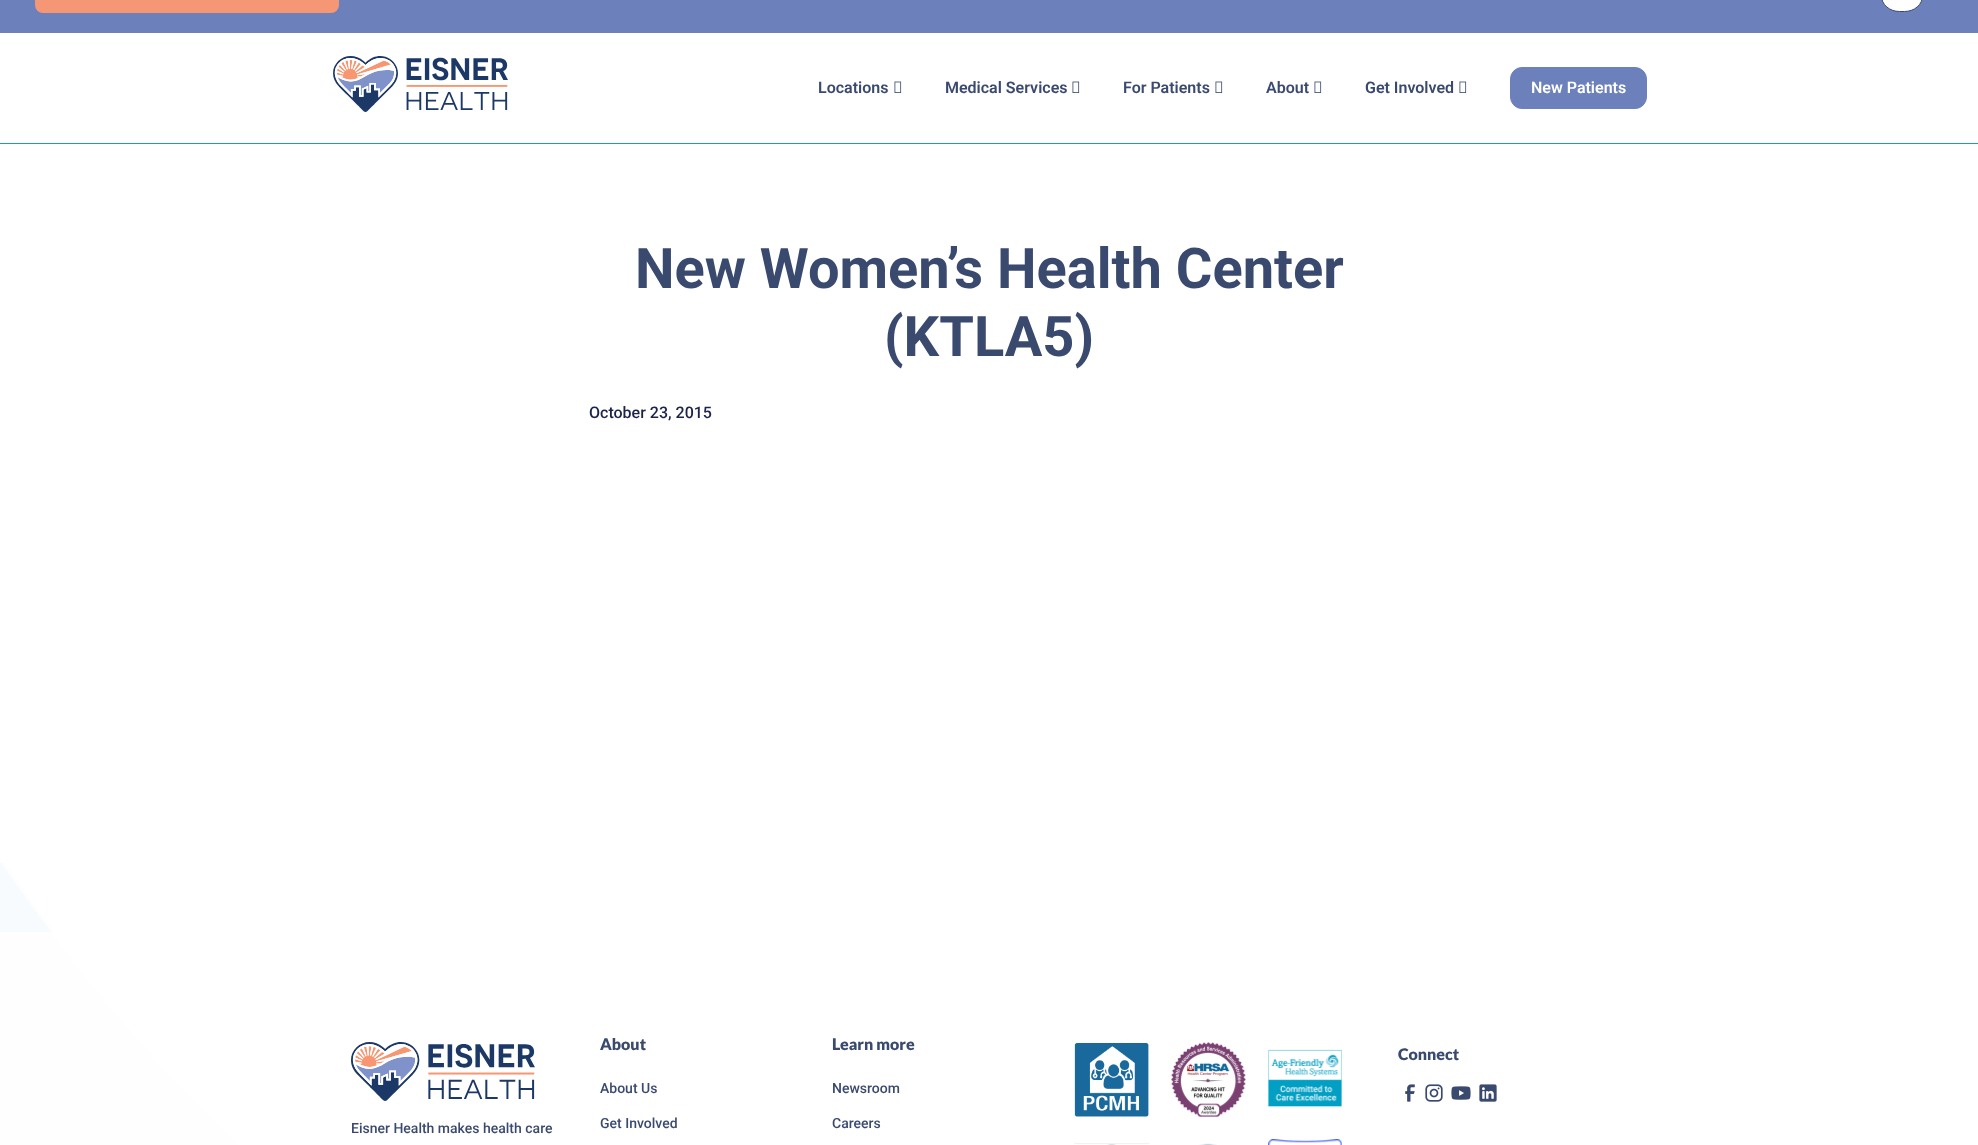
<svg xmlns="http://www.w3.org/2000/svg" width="1978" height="1145">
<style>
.a{font:600 16px Roboto;fill:#3a4a6f}
.b{font:600 16px Roboto;fill:#fff}
.c{font:bold 56px Roboto;fill:#3a4a6f}
.d{font:500 16px Roboto;fill:#1c244b}
.e{font:900 16px Lato;fill:#3a4a6f}
.f{font:500 14px Roboto;fill:#3a4a6f}
</style>
<rect width="100%" height="100%" fill="#fff"/>
<image href="1.png" x="0" y="863" width="240" height="282"/>
<path fill="#6c81bc" d="M0 0h1978v33H0z"/>
<rect fill="#f59674" x="35" y="-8" width="304" height="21" rx="8"/>
<rect fill="#fff" stroke="#3a4a6f" x="1881.5" y="-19.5" width="41" height="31" rx="18"/>
<path fill="#1a98d1" d="M0 143h1978v1H0z"/>
<image href="2.png" x="333" y="56" width="175" height="56"/>
<image href="3.png" x="894" y="81" width="8" height="12"/>
<image href="3.png" x="1072" y="81" width="8" height="12"/>
<image href="3.png" x="1215" y="81" width="8" height="12"/>
<image href="3.png" x="1314" y="81" width="8" height="12"/>
<image href="3.png" x="1459" y="81" width="8" height="12"/>
<rect fill="#6c81bc" stroke="#6c81bc" x="1510.5" y="67.5" width="136" height="41" rx="11.5"/>
<path fill="#ffffffcc" d="M0 932h240v213H0z"/>
<image href="4.png" x="1074" y="1043" width="75" height="74"/>
<image href="5.png" x="1171" y="1042" width="75" height="75"/>
<image href="6.png" x="1268" y="1049" width="74" height="59"/>
<image href="7.png" x="1074" y="1143" width="75" height="2"/>
<image href="8.png" x="1199" y="1143" width="18" height="2"/>
<image href="9.png" x="1268" y="1139" width="74" height="6"/>
<image href="10.png" x="1405" y="1084" width="10" height="18"/>
<image href="11.png" x="1425" y="1084" width="18" height="18"/>
<image href="12.png" x="1451" y="1086" width="20" height="14"/>
<image href="13.png" x="1479" y="1084" width="18" height="18"/>
<image href="14.png" x="351" y="1042" width="184" height="59"/>
<text class="a" x="818" y="93">Locations</text>
<text class="a" x="945" y="93">Medical Services</text>
<text class="a" x="1123" y="93">For Patients</text>
<text class="a" x="1266" y="93">About</text>
<text class="a" x="1365" y="93">Get Involved</text>
<text class="b" x="1531" y="93">New Patients</text>
<text class="c" x="635" y="288">New Women’s Health Center</text>
<text class="c" x="884" y="356">(KTLA5)</text>
<text class="d" x="589" y="418">October 23, 2015</text>
<text class="e" x="600" y="1050">About</text>
<text class="f" x="600" y="1093">About Us</text>
<text class="f" x="600" y="1128">Get Involved</text>
<text class="e" x="832" y="1050">Learn more</text>
<text class="f" x="832" y="1093">Newsroom</text>
<text class="f" x="832" y="1128">Careers</text>
<text class="e" x="1398" y="1060">Connect</text>
<text class="f" x="351" y="1133">Eisner Health makes health care</text>
</svg>
